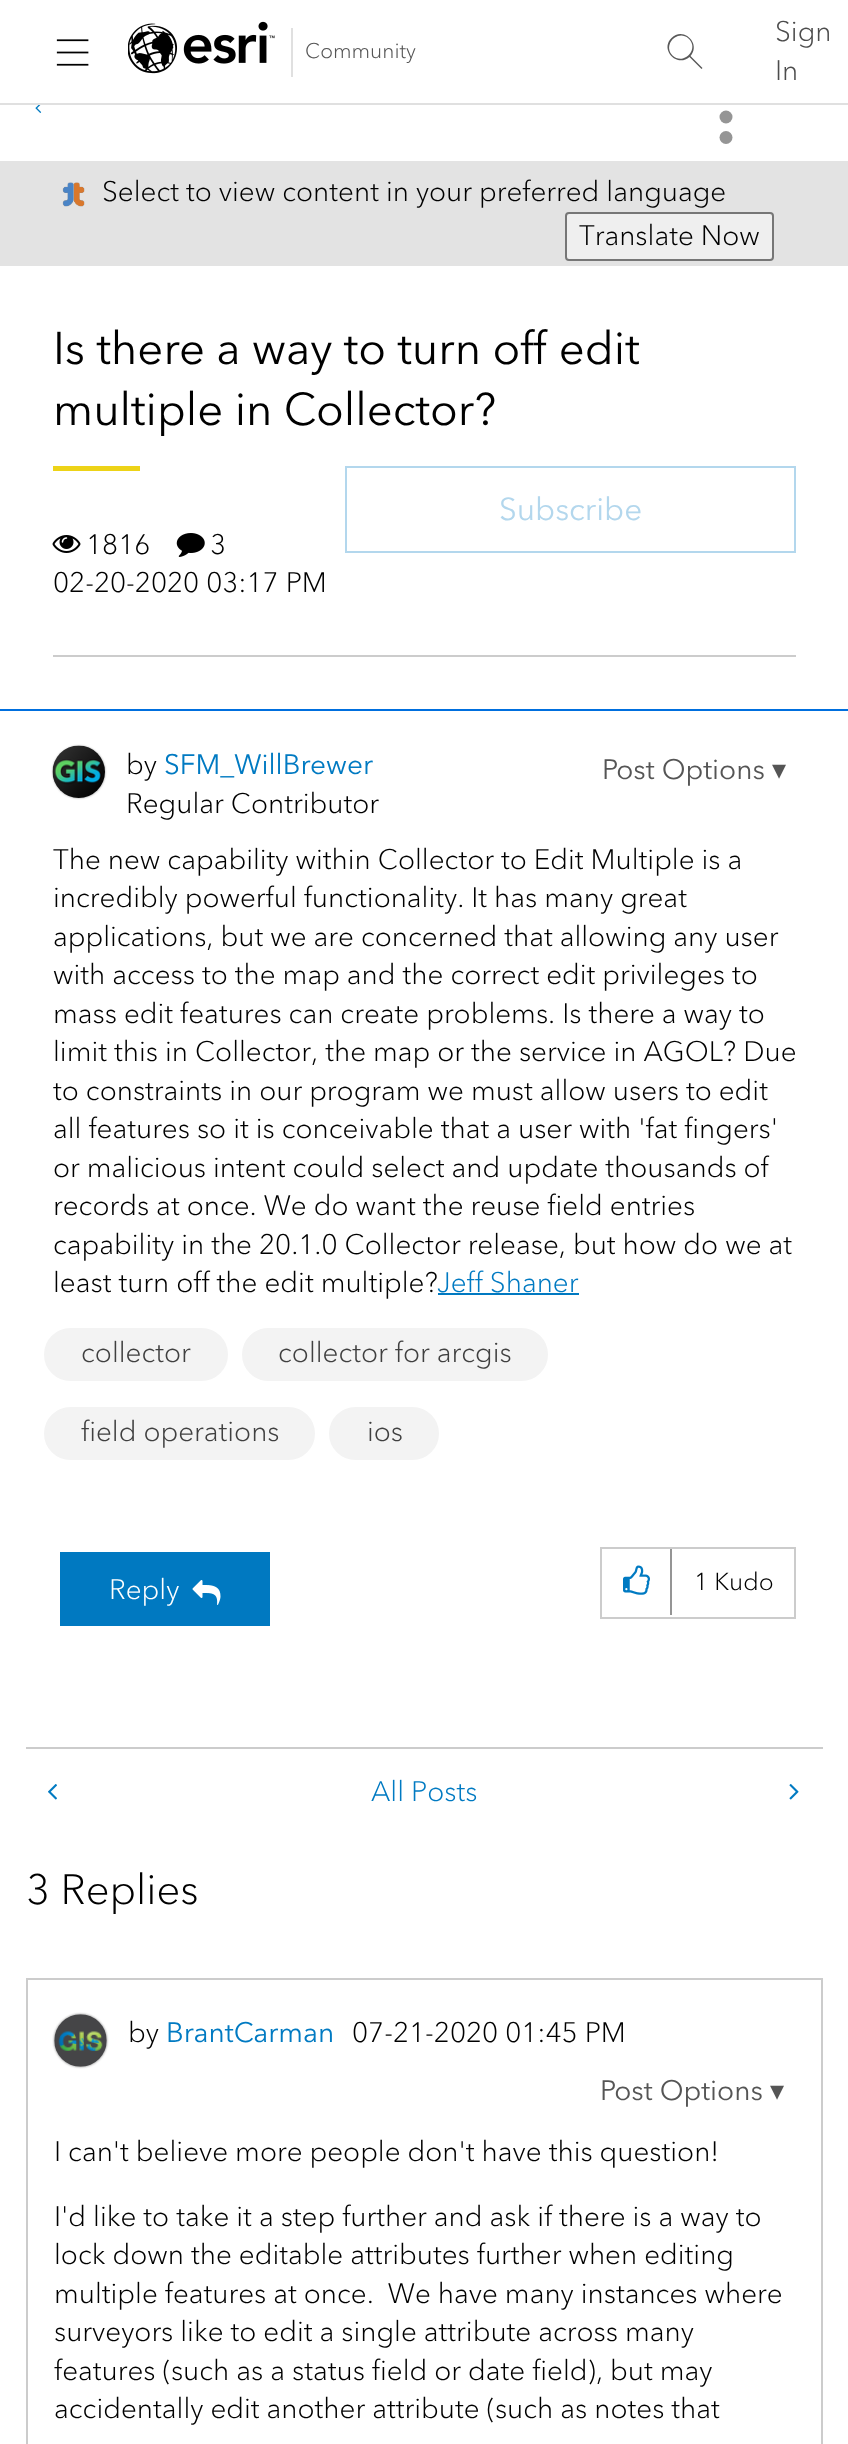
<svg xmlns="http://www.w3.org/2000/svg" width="848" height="2444">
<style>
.a{font:300 21px Avenir Next;fill:#555}
.b{font:300 28px Avenir Next;fill:#4c4c4c}
.c{font:300 28px Avenir Next;fill:#000}
.d{font:45.5px Avenir Next;fill:#000}
.e{font:31.5px Avenir Next;fill:#b3d7ed}
.f{font:28px Avenir Next;fill:#007ac2}
.g{font:28px Avenir Next;fill:#555}
.h{font:28px DejaVu Sans;fill:#555}
.i{font:300 28px Avenir Next;fill:#007ac2}
.j{font:300 28px Avenir Next;fill:#404040}
.k{font:300 28px Avenir Next;fill:#fff}
.l{font:300 24.5px Avenir Next;fill:#000}
.m{font:300 42px Avenir Next;fill:#000}
</style>
<rect width="100%" height="100%" fill="#006fde"/>
<path fill="#fff" d="M0 0h848v103H0z"/>
<path fill="#e0e0e0" d="M0 103h848v2H0z"/>
<image href="1.png" x="56" y="39" width="33" height="27"/>
<image href="2.png" x="128" y="21" width="147" height="53"/>
<path fill="#e0e0e0" d="M291 28h2v49H291z"/>
<path fill="#595959" d="M702.5 68l-12-12c11-12.5-7.5-30-19-18c-12 11.5 5.5 30 18 19l12 12zm-30-12.5c-10-10.5 5-26.5 16-17c11.5 10.5-5 27.5-16 17z"/>
<path fill="#fff" d="M0 105h848v56H0z"/>
<image href="3.png" x="35" y="105" width="7" height="8"/>
<circle fill="#959595" cx="726" cy="117" r="6.5"/>
<circle fill="#959595" cx="726" cy="137.5" r="6.5"/>
<path fill="#e3e3e3" d="M0 161h848v105H0z"/>
<image href="4.png" x="62" y="182" width="23" height="25"/>
<rect fill="#efefef" stroke="#767676" stroke-width="2" x="566" y="213" width="207" height="47" rx="3"/>
<path fill="#fff" d="M0 266h848v443H0z"/>
<path fill="#edd317" d="M53 466h87v5H53z"/>
<path fill="none" stroke="#b3d7ed" stroke-width="2" d="M346 467h449v85H346z"/>
<image href="5.png" x="52" y="535" width="29" height="18"/>
<image href="6.png" x="176" y="533" width="29" height="24"/>
<path fill="#ccc" d="M53 655h743v2H53z"/>
<path fill="#fff" d="M0 711h848v1733H0z"/>
<rect fill="#959595" filter="blur(1px)" x="53" y="746" width="52" height="52" rx="26"/>
<image href="7.png" x="52" y="745" width="53" height="53"/>
<path fill="#0079c1" d="M438 1293h141v2H438z"/>
<rect fill="#f3f3f3" stroke="#f3f3f3" stroke-width="2" x="45" y="1329" width="182" height="51" rx="25.5"/>
<rect fill="#f3f3f3" stroke="#f3f3f3" stroke-width="2" x="243" y="1329" width="304" height="51" rx="25.5"/>
<rect fill="#f3f3f3" stroke="#f3f3f3" stroke-width="2" x="45" y="1408" width="269" height="51" rx="25.5"/>
<rect fill="#f3f3f3" stroke="#f3f3f3" stroke-width="2" x="330" y="1408" width="108" height="51" rx="25.5"/>
<path fill="#0079c1" d="M60 1552h210v74H60z"/>
<image href="8.png" x="192" y="1580" width="29" height="25"/>
<path fill="none" stroke="#ccc" stroke-width="2" d="M601 1548h194v70H601z"/>
<image href="9.png" x="623" y="1565" width="27" height="30"/>
<path fill="#959595" d="M670 1549h2v66H670z"/>
<path fill="#ccc" d="M26 1747h797v2H26z"/>
<image href="10.png" x="48" y="1784" width="9" height="16"/>
<image href="11.png" x="789" y="1784" width="10" height="16"/>
<path fill="none" stroke="#ccc" stroke-width="2" d="M27 1979h795v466H27z"/>
<rect fill="#959595" filter="blur(1px)" x="54" y="2014" width="53" height="53" rx="26.5"/>
<image href="12.png" x="54" y="2014" width="53" height="53"/>
<text class="a" x="305" y="58">Community</text>
<text class="b" x="775" y="41">Sign</text>
<text class="b" x="775" y="80">In</text>
<text class="c" x="102" y="201">Select to view content in your preferred language</text>
<text class="c" x="579" y="245">Translate Now</text>
<text class="d" x="53" y="364">Is there a way to turn off edit</text>
<text class="d" x="53" y="425">multiple in Collector?</text>
<text class="e" x="499" y="520">Subscribe</text>
<text class="c" x="86" y="554">1816</text>
<text class="c" x="210" y="554">3</text>
<text class="c" x="53" y="592">02-20-2020 03:17 PM</text>
<text class="c" x="126" y="774">by</text>
<text class="f" x="164" y="774">SFM_WillBrewer</text>
<text class="c" x="126" y="813">Regular Contributor</text>
<text class="g" x="602" y="779">Post Options</text>
<text class="h" x="772" y="779">▾</text>
<text class="c" x="53" y="869">The new capability within Collector to Edit Multiple is a</text>
<text class="c" x="53" y="907">incredibly powerful functionality. It has many great</text>
<text class="c" x="53" y="946">applications, but we are concerned that allowing any user</text>
<text class="c" x="53" y="984">with access to the map and the correct edit privileges to</text>
<text class="c" x="53" y="1023">mass edit features can create problems. Is there a way to</text>
<text class="c" x="53" y="1061">limit this in Collector, the map or the service in AGOL? Due</text>
<text class="c" x="53" y="1100">to constraints in our program we must allow users to edit</text>
<text class="c" x="53" y="1138">all features so it is conceivable that a user with 'fat fingers'</text>
<text class="c" x="53" y="1177">or malicious intent could select and update thousands of</text>
<text class="c" x="53" y="1215">records at once. We do want the reuse field entries</text>
<text class="c" x="53" y="1254">capability in the 20.1.0 Collector release, but how do we at</text>
<text class="c" x="53" y="1292">least turn off the edit multiple?</text>
<text class="i" x="437" y="1292">Jeff Shaner</text>
<text class="j" x="81" y="1362">collector</text>
<text class="j" x="278" y="1362">collector for arcgis</text>
<text class="j" x="81" y="1441">field operations</text>
<text class="j" x="367" y="1441">ios</text>
<text class="k" x="109" y="1599">Reply</text>
<text class="l" x="694" y="1590">1 Kudo</text>
<text class="i" x="371" y="1801">All Posts</text>
<text class="m" x="26" y="1904">3 Replies</text>
<text class="c" x="128" y="2042">by</text>
<text class="f" x="166" y="2042">BrantCarman</text>
<text class="c" x="352" y="2042">07-21-2020 01:45 PM</text>
<text class="g" x="600" y="2100">Post Options</text>
<text class="h" x="770" y="2100">▾</text>
<text class="c" x="54" y="2161">I can't believe more people don't have this question!</text>
<text class="c" x="54" y="2226">I'd like to take it a step further and ask if there is a way to</text>
<text class="c" x="54" y="2264">lock down the editable attributes further when editing</text>
<text class="c" xml:space="preserve" x="54" y="2303">multiple features at once.  We have many instances where</text>
<text class="c" x="54" y="2341">surveyors like to edit a single attribute across many</text>
<text class="c" x="54" y="2380">features (such as a status field or date field), but may</text>
<text class="c" x="54" y="2418">accidentally edit another attribute (such as notes that</text>
</svg>
